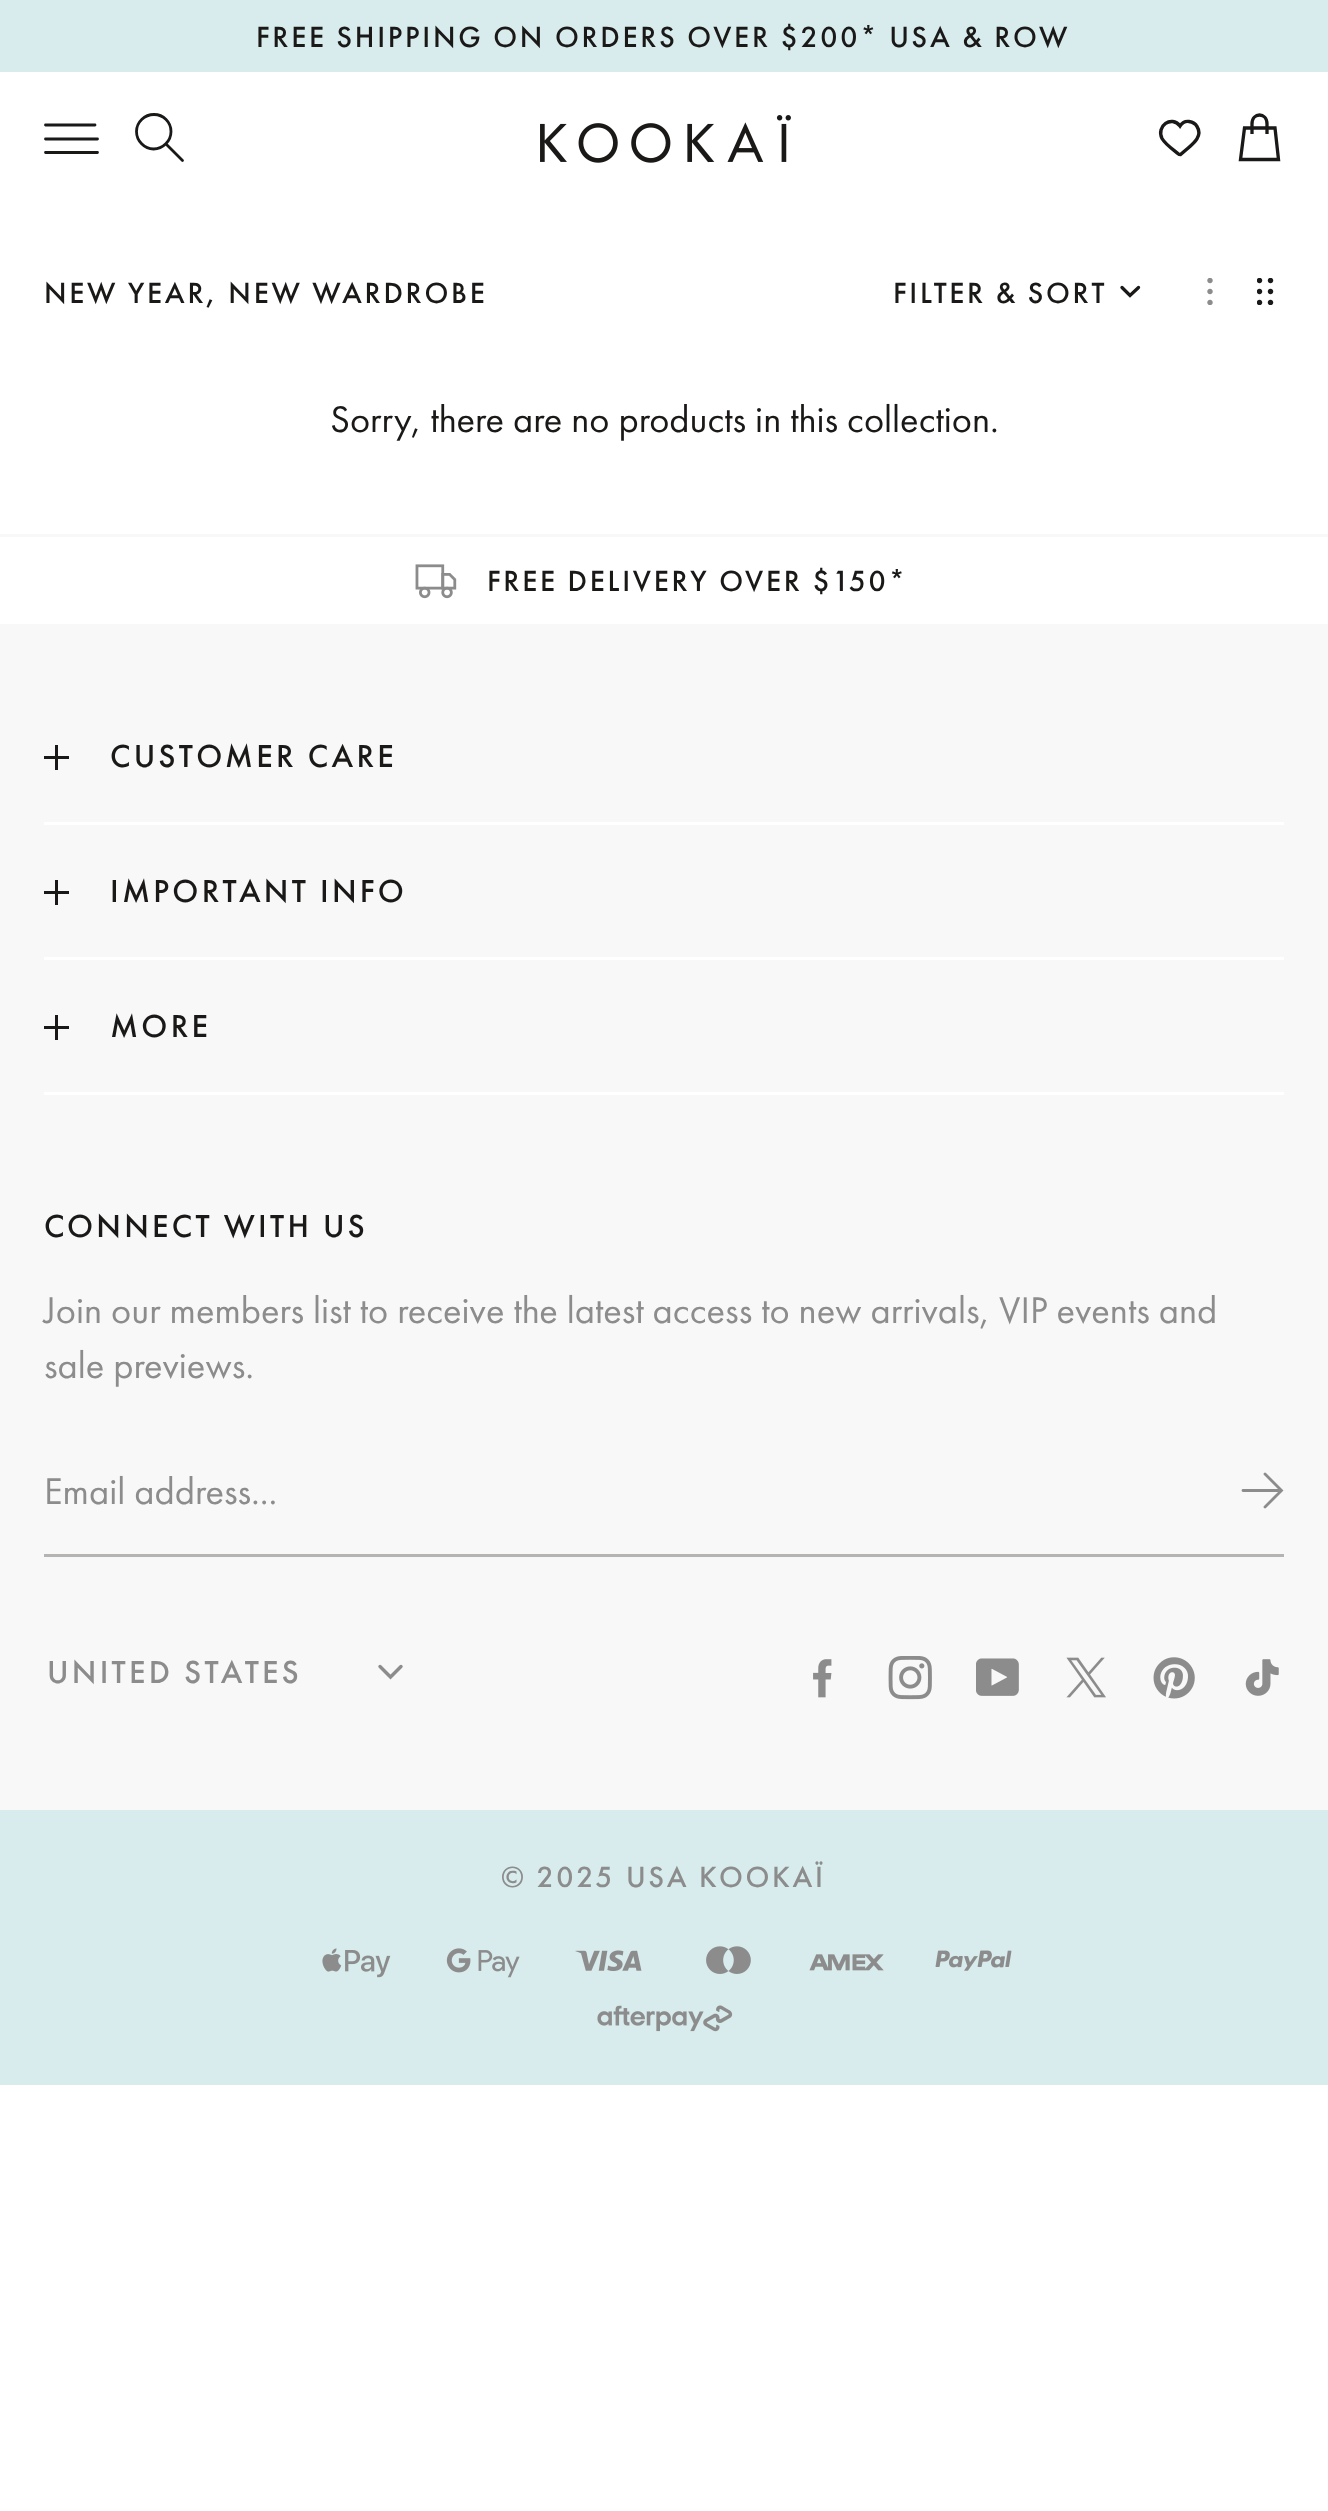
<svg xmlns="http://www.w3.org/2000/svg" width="1328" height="2511">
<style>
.a{font:500 30.25px Futura PT;letter-spacing:2.7px;fill:#1a1918}
.b{font:38.5px Futura PT;fill:#1a1918}
.c{font:500 33px Futura PT;letter-spacing:3.25px;fill:#1a1918}
.d{font:38.5px Futura PT;fill:#8c8c8c}
.e{font:500 33px Futura PT;letter-spacing:3.25px;fill:#8c8c8c}
.f{font:500 30.25px Futura PT;letter-spacing:2.7px;fill:#8c8c8c}
</style>
<rect width="100%" height="100%" fill="#fff"/>
<path fill="#d8eced" d="M0 0h1328v72H0z"/>
<path fill="none" stroke="#1a1918" stroke-width="2.8" stroke-linecap="round" d="M45.5 125h49.5m-49.5 14h52m-52 13.5h52"/>
<path fill="none" stroke="#1a1918" stroke-width="2.8" stroke-linecap="round" stroke-linejoin="round" d="M153.5 149c9.5 0 17.5-8 17.5-17.5c0-9.5-7.5-17-17-17c-9.5 0-17.5 7.5-17.5 17c0 9.5 8 17.5 17 17.5zm13-4.5l16 16"/>
<image href="1.png" x="540" y="115" width="251" height="48"/>
<path fill="none" stroke="#1a1918" stroke-width="3.4" d="M1178.5 154c.5 .5 1.5 .5 2 .5l6.5-5.5c6.5-5.5 16-13 10-22.5c-1.5-3-4.5-4.5-8-5c-3.5-.5-7 1.5-9 4.5c-8.5-11-24 0-18 12.5c3.5 6 11 11 16.5 15.5z"/>
<path fill="none" stroke="#1a1918" stroke-width="3.3" d="M1244.5 128h30.5l3.5 31.5h-38zm22.5 6v-10c0-6.5-4-9-7.5-9c-3.5 0-7.5 2.5-7.5 9v10"/>
<path fill="none" stroke="#1a1918" stroke-width="3.3" stroke-linecap="round" d="M1122 287.5l8 8l8.5-8"/>
<image href="2.png" x="1207" y="278" width="6" height="27"/>
<image href="3.png" x="1257" y="278" width="17" height="27"/>
<path fill="#f8f8f8" d="M0 534h1328v3H0z"/>
<image href="4.png" x="415" y="564" width="42" height="35"/>
<path fill="#f8f8f8" d="M0 624h1328v1186H0z"/>
<path fill="#1a1918" d="M44 756h25v3H44z"/>
<path fill="#1a1918" d="M55 745h3v25H55z"/>
<path fill="#fff" d="M44 822h1240v3H44z"/>
<path fill="#1a1918" d="M44 891h25v3H44z"/>
<path fill="#1a1918" d="M55 880h3v25H55z"/>
<path fill="#fff" d="M44 957h1240v3H44z"/>
<path fill="#1a1918" d="M44 1026h25v3H44z"/>
<path fill="#1a1918" d="M55 1015h3v25H55z"/>
<path fill="#fff" d="M44 1092h1240v3H44z"/>
<path fill="#b6b3b3" d="M44 1554h1240v3H44z"/>
<path fill="none" stroke="#8c8c8c" stroke-width="2.8" stroke-linecap="round" d="M1243 1490.5h35m-13-16.5l16.5 16.5l-16.5 16.5"/>
<path fill="none" stroke="#8c8c8c" stroke-width="3.4" stroke-linecap="round" d="M401 1666.5l-10.5 10.5l-10.5-10.5"/>
<image href="5.png" x="813" y="1659" width="19" height="39"/>
<image href="6.png" x="888" y="1656" width="44" height="44"/>
<image href="7.png" x="976" y="1658" width="43" height="38"/>
<image href="8.png" x="1066" y="1657" width="40" height="41"/>
<image href="9.png" x="1153" y="1657" width="42" height="42"/>
<image href="10.png" x="1245" y="1659" width="34" height="37"/>
<path fill="#d8eced" d="M0 1810h1328v275H0z"/>
<image href="11.png" x="322" y="1948" width="69" height="30"/>
<image href="12.png" x="446" y="1948" width="74" height="30"/>
<image href="13.png" x="575" y="1950" width="67" height="21"/>
<image href="14.png" x="706" y="1946" width="45" height="28"/>
<image href="15.png" x="809" y="1954" width="75" height="17"/>
<image href="16.png" x="935" y="1950" width="77" height="21"/>
<image href="17.png" x="597" y="2005" width="136" height="27"/>
<text class="a" x="256" y="47">FREE SHIPPING ON ORDERS OVER $200* USA &amp; ROW</text>
<text class="a" x="44" y="303">NEW YEAR, NEW WARDROBE</text>
<text class="a" x="893" y="303">FILTER &amp; SORT</text>
<text class="b" x="330" y="432">Sorry, there are no products in this collection.</text>
<text class="a" x="487" y="591">FREE DELIVERY OVER $150*</text>
<text class="c" x="110" y="767">CUSTOMER CARE</text>
<text class="c" x="110" y="902">IMPORTANT INFO</text>
<text class="c" x="110" y="1037">MORE</text>
<text class="c" x="44" y="1237">CONNECT WITH US</text>
<text class="d" x="44" y="1323">Join our members list to receive the latest access to new arrivals, VIP events and</text>
<text class="d" x="44" y="1378">sale previews.</text>
<text class="d" x="44" y="1504">Email address...</text>
<text class="e" x="47" y="1683">UNITED STATES</text>
<text class="f" x="501" y="1887">© 2025</text>
<text class="f" x="626" y="1887">USA KOOKAÏ</text>
</svg>
